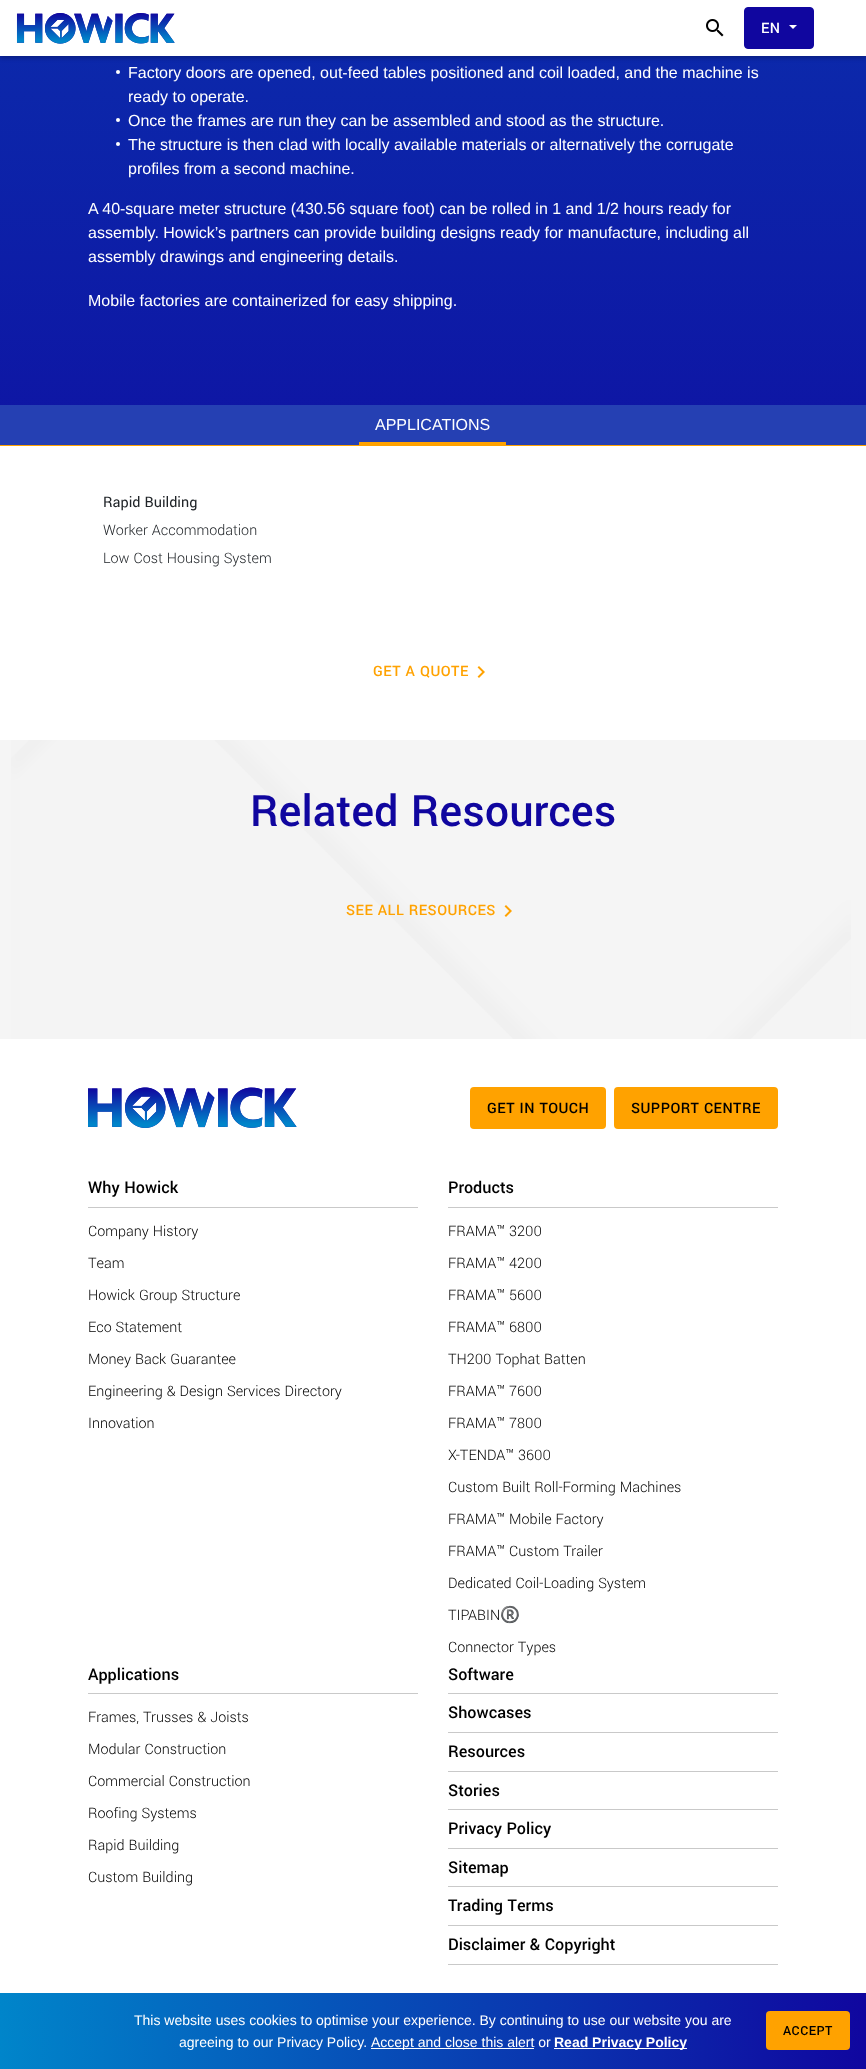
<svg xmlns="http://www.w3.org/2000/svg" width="866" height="2069">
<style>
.a{font:500 16px Yantramanav;letter-spacing:0.5px;fill:#fff}
.b{font:16px Arimo;fill:#fff}
.c{font:16px Yantramanav;fill:#212529}
.d{font:300 16px Yantramanav;fill:#212529}
.e{font:500 16px Yantramanav;letter-spacing:0.5px;fill:#ffa200}
.f{font:500 48px Yantramanav;fill:#10069f}
.g{font:500 16px Yantramanav;letter-spacing:0.5px;fill:#000}
.h{font:500 18px Yantramanav;fill:#000}
.i{font:300 16px Yantramanav;fill:#000}
.j{font:16px Noto Color Emoji;fill:#000}
.k{font:14px Arimo;fill:#fff}
.l{font:500 14px Yantramanav;letter-spacing:0.5px;fill:#000}
.m{font:bold 14px Arimo;fill:#fff}
</style>
<defs>
<linearGradient id="g1" gradientUnits="userSpaceOnUse" x1="433" y1="-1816" x2="433" y2="740"><stop offset="0" stop-color="#0085ca"/><stop offset="1" stop-color="#10069f"/></linearGradient>
<linearGradient id="g2" gradientUnits="userSpaceOnUse" x1="0" y1="2031" x2="866" y2="2031"><stop offset="0" stop-color="#0085ca"/><stop offset="1" stop-color="#10069f"/></linearGradient>
</defs>
<rect width="100%" height="100%" fill="#fff"/>
<path fill="url(#g1)" d="M0 56h866v349H0z"/>
<path fill="#00000040" filter="blur(2px)" d="M0 2h866v56H0z"/>
<path fill="#fff" d="M0 0h866v56H0z"/>
<image href="1.png" x="16" y="13" width="159" height="31"/>
<image href="2.png" x="706" y="19" width="18" height="18"/>
<rect fill="#10069f" stroke="#10069f" x="744.5" y="7.5" width="69" height="41" rx="3.5"/>
<path fill="#fff" d="M789 25h8l-4 4z"/>
<path fill="#f5f5f5" d="M0 740h866v299H0z"/>
<image href="3.png" x="11" y="740" width="840" height="299"/>
<circle fill="#fff" cx="118" cy="72" r="2"/>
<circle fill="#fff" cx="118" cy="120" r="2"/>
<circle fill="#fff" cx="118" cy="144" r="2"/>
<path fill="#2540b3" d="M0 405h866v40H0z"/>
<path fill="#ffa200" d="M0 445h866v1H0z"/>
<path fill="#ffa200" d="M359 442h147v3H359z"/>
<image href="4.png" x="477" y="666" width="8" height="12"/>
<image href="5.png" x="504" y="905" width="8" height="12"/>
<image href="6.png" x="88" y="1087" width="209" height="41"/>
<rect fill="#ffa200" x="470" y="1087" width="136" height="42" rx="4"/>
<rect fill="#ffa200" x="614" y="1087" width="164" height="42" rx="4"/>
<path fill="#c9c9c9" d="M88 1207h330v1H88z"/>
<path fill="#c9c9c9" d="M448 1207h330v1H448z"/>
<path fill="#c9c9c9" d="M88 1693h330v1H88z"/>
<path fill="#c9c9c9" d="M448 1693h330v1H448z"/>
<path fill="#c9c9c9" d="M448 1732h330v1H448z"/>
<path fill="#c9c9c9" d="M448 1771h330v1H448z"/>
<path fill="#c9c9c9" d="M448 1809h330v1H448z"/>
<path fill="#c9c9c9" d="M448 1848h330v1H448z"/>
<path fill="#c9c9c9" d="M448 1886h330v1H448z"/>
<path fill="#c9c9c9" d="M448 1925h330v1H448z"/>
<path fill="#c9c9c9" d="M448 1964h330v1H448z"/>
<path fill="url(#g2)" d="M0 1993h866v76H0z"/>
<rect fill="#ffa200" x="766" y="2011" width="84" height="39" rx="4"/>
<path fill="#fff" d="M371 2048h163v1H371z"/>
<path fill="#fff" d="M554 2048h133v1H554z"/>
<text class="a" x="761" y="33">EN</text>
<text class="b" x="128" y="78">Factory doors are opened, out-feed tables positioned and coil loaded, and the machine is</text>
<text class="b" x="128" y="102">ready to operate.</text>
<text class="b" x="128" y="126">Once the frames are run they can be assembled and stood as the structure.</text>
<text class="b" x="128" y="150">The structure is then clad with locally available materials or alternatively the corrugate</text>
<text class="b" x="128" y="174">profiles from a second machine.</text>
<text class="b" x="88" y="214">A 40-square meter structure (430.56 square foot) can be rolled in 1 and 1/2 hours ready for</text>
<text class="b" x="88" y="238">assembly. Howick’s partners can provide building designs ready for manufacture, including all</text>
<text class="b" x="88" y="262">assembly drawings and engineering details.</text>
<text class="b" x="88" y="306">Mobile factories are containerized for easy shipping.</text>
<text class="b" x="375" y="430">APPLICATIONS</text>
<text class="c" x="103" y="507">Rapid Building</text>
<text class="d" x="103" y="535">Worker Accommodation</text>
<text class="d" x="103" y="563">Low Cost Housing System</text>
<text class="e" x="373" y="676">GET A QUOTE</text>
<text class="f" x="250" y="826">Related Resources</text>
<text class="e" x="346" y="915">SEE ALL RESOURCES</text>
<text class="g" x="487" y="1113">GET IN TOUCH</text>
<text class="g" x="631" y="1113">SUPPORT CENTRE</text>
<text class="h" x="88" y="1193">Why Howick</text>
<text class="i" x="88" y="1236">Company History</text>
<text class="i" x="88" y="1268">Team</text>
<text class="i" x="88" y="1300">Howick Group Structure</text>
<text class="i" x="88" y="1332">Eco Statement</text>
<text class="i" x="88" y="1364">Money Back Guarantee</text>
<text class="i" x="88" y="1396">Engineering &amp; Design Services Directory</text>
<text class="i" x="88" y="1428">Innovation</text>
<text class="h" x="448" y="1193">Products</text>
<text class="i" x="448" y="1236">FRAMA™ 3200</text>
<text class="i" x="448" y="1268">FRAMA™ 4200</text>
<text class="i" x="448" y="1300">FRAMA™ 5600</text>
<text class="i" x="448" y="1332">FRAMA™ 6800</text>
<text class="i" x="448" y="1364">TH200 Tophat Batten</text>
<text class="i" x="448" y="1396">FRAMA™ 7600</text>
<text class="i" x="448" y="1428">FRAMA™ 7800</text>
<text class="i" x="448" y="1460">X-TENDA™ 3600</text>
<text class="i" x="448" y="1492">Custom Built Roll-Forming Machines</text>
<text class="i" x="448" y="1524">FRAMA™ Mobile Factory</text>
<text class="i" x="448" y="1556">FRAMA™ Custom Trailer</text>
<text class="i" x="448" y="1588">Dedicated Coil-Loading System</text>
<text class="i" x="448" y="1620">TIPABIN</text>
<text class="j" x="500" y="1620">®️</text>
<text class="i" x="448" y="1652">Connector Types</text>
<text class="h" x="88" y="1680">Applications</text>
<text class="i" x="88" y="1722">Frames, Trusses &amp; Joists</text>
<text class="i" x="88" y="1754">Modular Construction</text>
<text class="i" x="88" y="1786">Commercial Construction</text>
<text class="i" x="88" y="1818">Roofing Systems</text>
<text class="i" x="88" y="1850">Rapid Building</text>
<text class="i" x="88" y="1882">Custom Building</text>
<text class="h" x="448" y="1680">Software</text>
<text class="h" x="448" y="1718">Showcases</text>
<text class="h" x="448" y="1757">Resources</text>
<text class="h" x="448" y="1796">Stories</text>
<text class="h" x="448" y="1834">Privacy Policy</text>
<text class="h" x="448" y="1873">Sitemap</text>
<text class="h" x="448" y="1911">Trading Terms</text>
<text class="h" x="448" y="1950">Disclaimer &amp; Copyright</text>
<text class="k" x="134" y="2025">This website uses cookies to optimise your experience. By continuing to use our website you are</text>
<text class="l" x="783" y="2035">ACCEPT</text>
<text class="k" x="179" y="2047">agreeing to our Privacy Policy.</text>
<text class="k" x="371" y="2047">Accept and close this alert or</text>
<text class="m" x="554" y="2047">Read Privacy Policy</text>
</svg>
